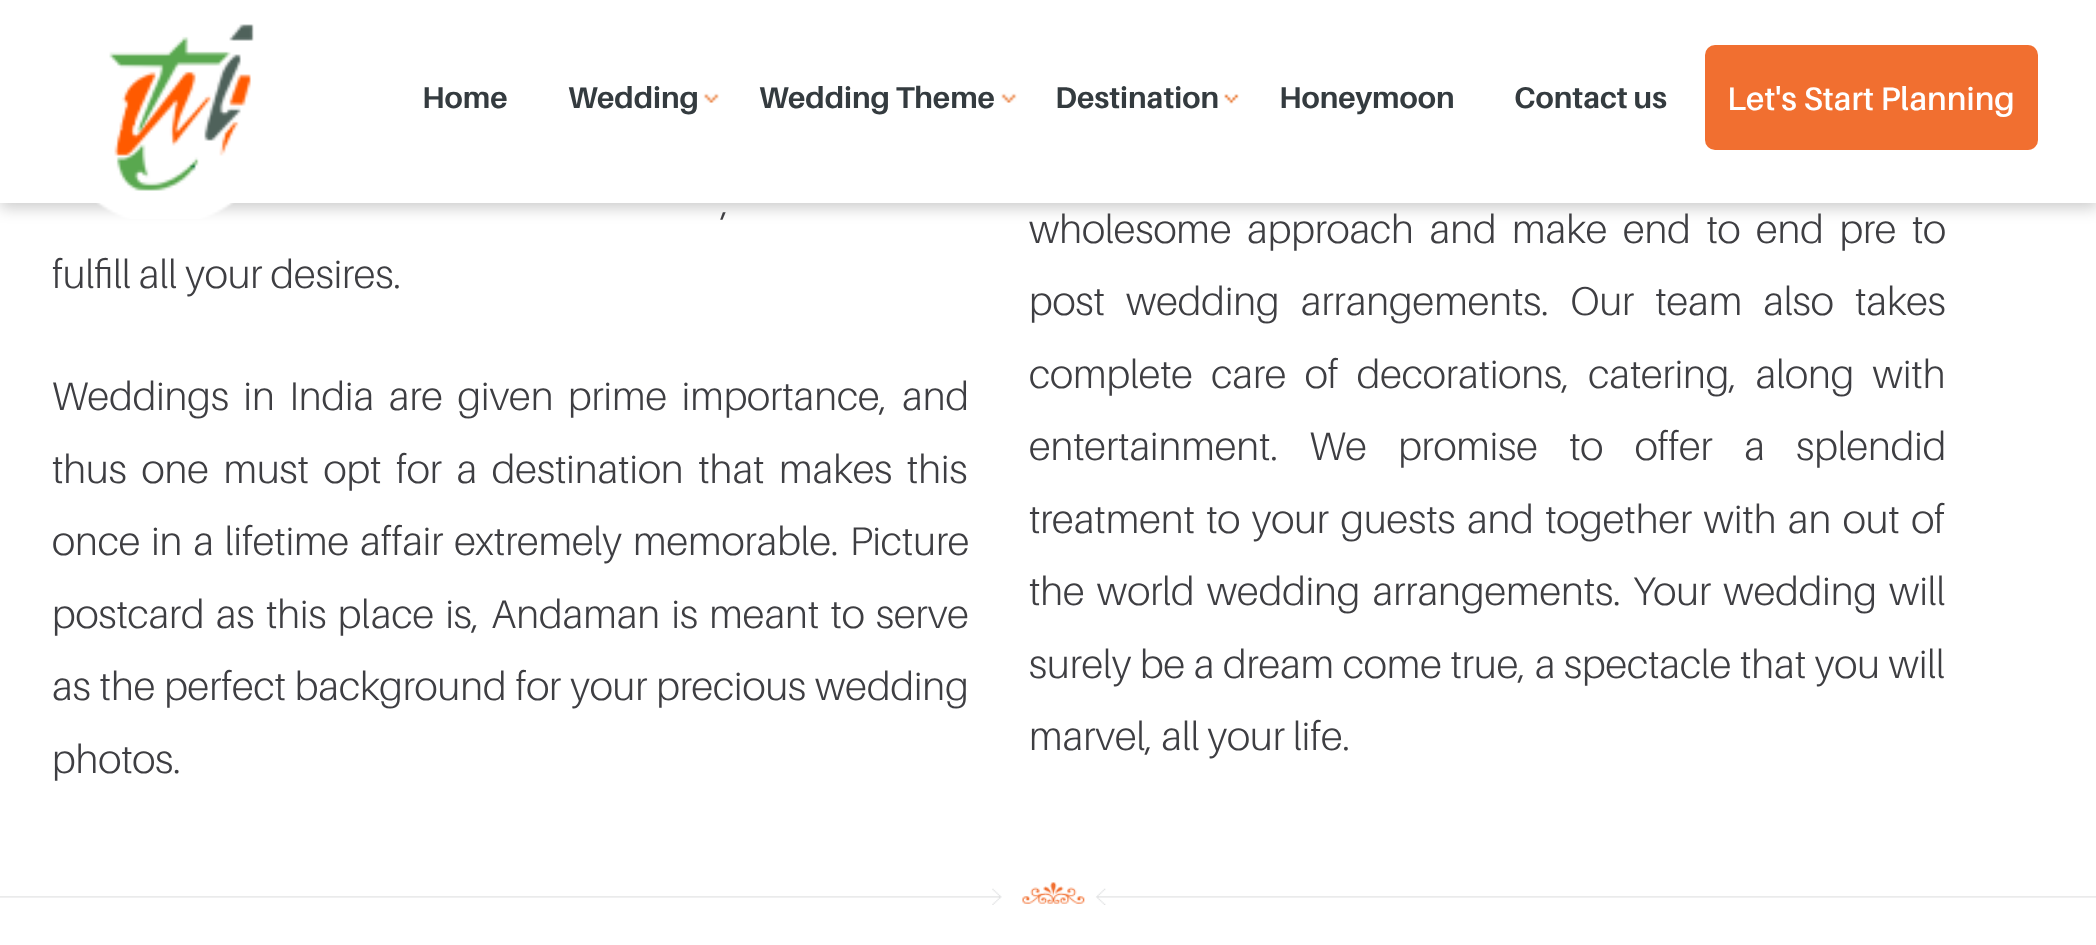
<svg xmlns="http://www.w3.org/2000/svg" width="2096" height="945">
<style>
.a{font:bold 30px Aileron;fill:#343b3f}
.b{font:600 32.5px Aileron;fill:#fff}
.c{font:300 40px Aileron;fill:#3e3e42}
</style>
<rect width="100%" height="100%" fill="#fff"/>
<path fill="#00000033" filter="blur(7.5px)" d="M0 5h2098v203H0z"/>
<path fill="#fff" d="M0 0h2096v203H0z"/>
<image href="1.png" x="96" y="24" width="158" height="195"/>
<image href="2.png" x="703" y="93" width="16" height="10"/>
<image href="3.png" x="1001" y="93" width="16" height="10"/>
<image href="4.png" x="1224" y="94" width="15" height="10"/>
<rect fill="#f16f30" x="1705" y="45" width="333" height="105" rx="10"/>
<image href="5.png" x="0" y="882" width="2096" height="23"/>
<text class="a" x="422" y="108">Home</text>
<text class="a" x="568" y="108">Wedding</text>
<text class="a" x="759" y="108">Wedding Theme</text>
<text class="a" x="1055" y="108">Destination</text>
<text class="a" x="1279" y="108">Honeymoon</text>
<text class="a" x="1514" y="108">Contact us</text>
<text class="b" x="1727" y="110">Let's Start Planning</text>
<text class="c" x="721" y="215" word-spacing="1">,</text>
<text class="c" x="52" y="288">fulfill all your desires.</text>
<text class="c" x="52" y="410" word-spacing="6.5">Weddings in India are given prime importance, and</text>
<text class="c" x="52" y="483" word-spacing="6.5">thus one must opt for a destination that makes this</text>
<text class="c" x="52" y="555" word-spacing="2.75">once in a lifetime affair extremely memorable. Picture</text>
<text class="c" x="52" y="628" word-spacing="3.25">postcard as this place is, Andaman is meant to serve</text>
<text class="c" x="52" y="700" word-spacing="0.75">as the perfect background for your precious wedding</text>
<text class="c" x="52" y="773">photos.</text>
<text class="c" x="1029" y="243" word-spacing="7.5">wholesome approach and make end to end pre to</text>
<text class="c" x="1029" y="315" word-spacing="13">post wedding arrangements. Our team also takes</text>
<text class="c" x="1029" y="388" word-spacing="10.25">complete care of decorations, catering, along with</text>
<text class="c" x="1029" y="460" word-spacing="23.25">entertainment. We promise to offer a splendid</text>
<text class="c" x="1029" y="533" word-spacing="3.25">treatment to your guests and together with an out of</text>
<text class="c" x="1029" y="605" word-spacing="4">the world wedding arrangements. Your wedding will</text>
<text class="c" x="1029" y="678" word-spacing="0.5">surely be a dream come true, a spectacle that you will</text>
<text class="c" x="1029" y="750">marvel, all your life.</text>
</svg>
